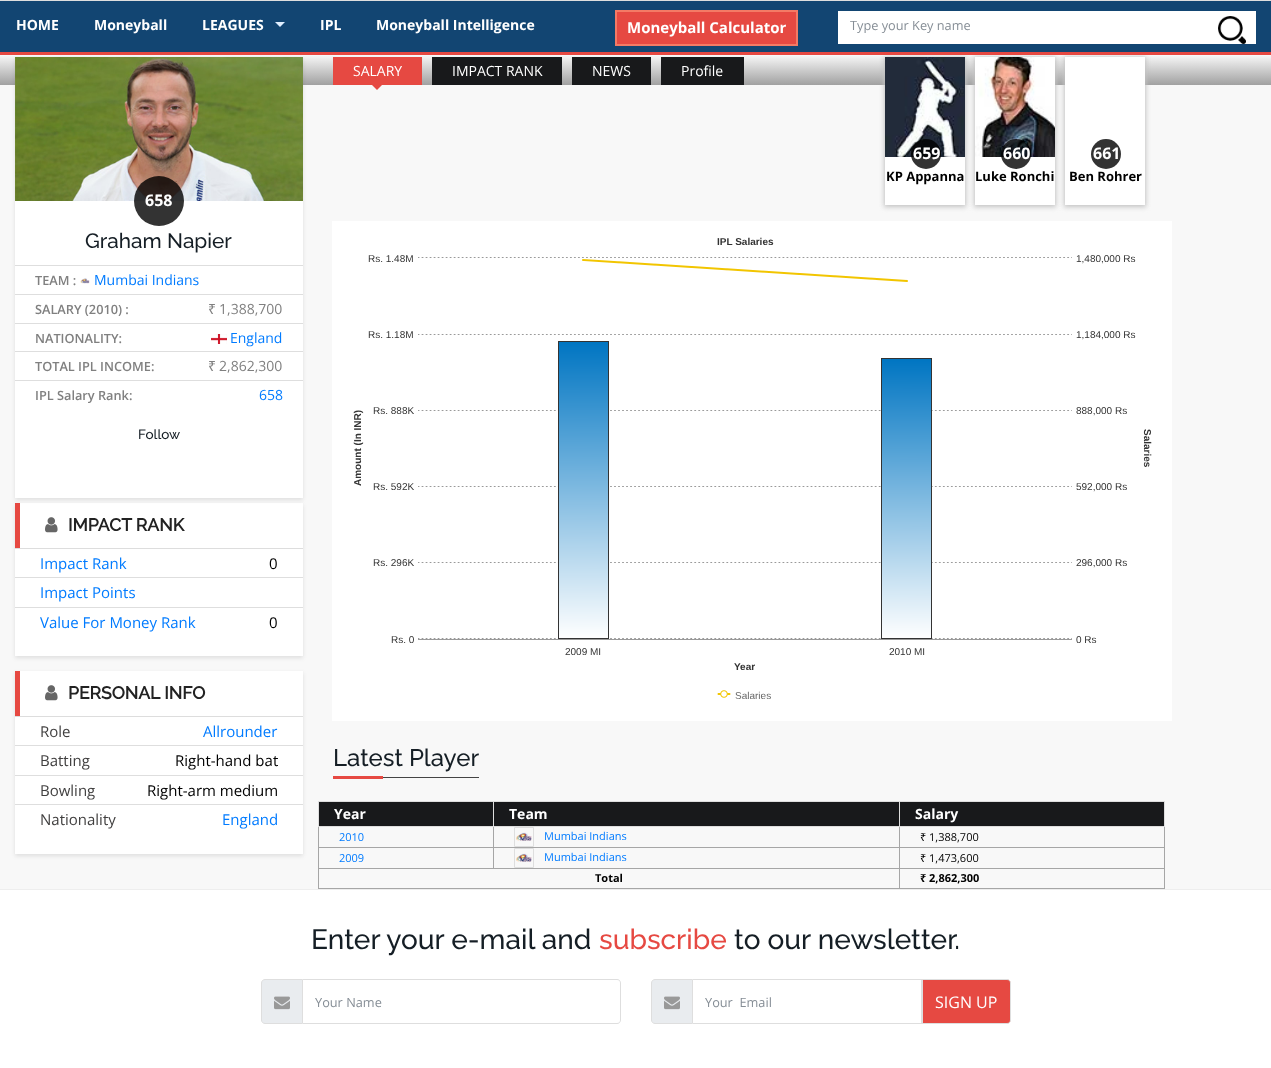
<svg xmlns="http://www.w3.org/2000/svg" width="1271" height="1068">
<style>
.a{font:bold 14px Open Sans;fill:#fff}
.b{font:bold 15px Open Sans;fill:#fff}
.c{font:12.75px Open Sans;fill:#868e96}
.d{font:bold 16px Open Sans;fill:#fff}
.e{font:500 20.75px Raleway;fill:#151e25}
.f{font:600 12.75px Open Sans;fill:#808080}
.g{font:14px Open Sans;fill:#007bff}
.h{font:14px Noto Sans;fill:#808080}
.i{font:14px Open Sans;fill:#808080}
.j{font:500 13.5px Raleway;fill:#151e25}
.k{font:bold 17.5px Raleway;fill:#222}
.l{font:15px Open Sans;fill:#007bff}
.m{font:15px Open Sans;fill:#000}
.n{font:15px Open Sans;fill:#403f3f}
.o{font:14px Open Sans;fill:#fff}
.p{font:bold 13px Open Sans;fill:#000}
.q{font:bold 10px Liberation Sans;fill:#333}
.r{font:10px Liberation Sans;fill:#333}
.s{font:10px Liberation Sans;fill:#666}
.t{font:500 24px Raleway;fill:#151e25}
.u{font:11px Open Sans;fill:#007bff}
.v{font:11px Noto Sans;fill:#000}
.w{font:11px Open Sans;fill:#000}
.x{font:bold 11px Open Sans;fill:#000}
.y{font:bold 11px Noto Sans;fill:#000}
.z{font:500 28px Raleway;fill:#151e25}
.a1{font:500 28px Raleway;fill:#e64942}
.b1{font:16px Open Sans;fill:#fff}
</style>
<defs>
<linearGradient id="g1" gradientUnits="userSpaceOnUse" x1="636" y1="55" x2="636" y2="85"><stop offset="0" stop-color="#f8f8f8"/><stop offset="1" stop-color="#a1a1a1"/></linearGradient>
</defs>
<rect width="100%" height="100%" fill="#f8f8f8"/>
<path fill="url(#g1)" d="M0 56h1271v29H0z"/>
<path fill="#c3c3c3" filter="blur(2.5px)" d="M884 57h82v150H884z"/>
<path fill="#c3c3c3" filter="blur(2.5px)" d="M974 57h82v150H974z"/>
<path fill="#c3c3c3" filter="blur(2.5px)" d="M1064 57h82v150H1064z"/>
<path fill="#124572" d="M0 1h1271v51H0z"/>
<path fill="#dedede" d="M0 0h1271v1H0z"/>
<path fill="#0000001a" filter="blur(2px)" d="M15 505h288v153H15z"/>
<path fill="#fff" d="M15 503h288v153H15z"/>
<path fill="#e64942" d="M15 503h5v45H15z"/>
<path fill="#0000001a" filter="blur(2px)" d="M15 59h288v441H15z"/>
<path fill="#e64942" d="M0 52h1271v3H0z"/>
<path fill="#dfeeff" d="M275 22h10l-5 5z"/>
<path fill="#e64942" stroke="#f47a65" stroke-width="2" d="M616 11h181v34H616z"/>
<path fill="#fff" d="M838 11h418v33H838z"/>
<image href="1.png" x="1218" y="16" width="28" height="28"/>
<path fill="#fff" d="M15 201h288v297H15z"/>
<image href="2.png" x="15" y="57" width="288" height="144"/>
<circle fill="#000000cc" cx="159" cy="201" r="25"/>
<path fill="#dedede" d="M15 265h288v1H15z"/>
<image href="3.png" x="80" y="278" width="10" height="6"/>
<path fill="#dedede" d="M15 294h288v1H15z"/>
<path fill="#dedede" d="M15 323h288v1H15z"/>
<image href="4.png" x="211" y="334" width="16" height="10"/>
<path fill="#dedede" d="M15 351h288v1H15z"/>
<path fill="#dedede" d="M15 380h288v1H15z"/>
<path fill="#ddd" d="M15 548h288v1H15z"/>
<image href="5.png" x="45" y="517" width="13" height="16"/>
<path fill="#dedede" d="M15 577h288v1H15z"/>
<path fill="#dedede" d="M15 607h288v1H15z"/>
<path fill="#0000001a" filter="blur(2px)" d="M15 673h288v183H15z"/>
<path fill="#fff" d="M15 671h288v183H15z"/>
<path fill="#ddd" d="M15 716h288v1H15z"/>
<path fill="#e64942" d="M15 671h5v45H15z"/>
<image href="5.png" x="45" y="685" width="13" height="16"/>
<path fill="#dedede" d="M15 745h288v1H15z"/>
<path fill="#dedede" d="M15 775h288v1H15z"/>
<path fill="#dedede" d="M15 804h288v1H15z"/>
<path fill="#e64942" d="M333 57h89v28H333z"/>
<path fill="#e64942" d="M371 84h12l-6 6z"/>
<path fill="#18191b" d="M432 57h130v28H432z"/>
<path fill="#18191b" d="M572 57h79v28H572z"/>
<path fill="#18191b" d="M661 57h83v28H661z"/>
<path fill="#fff" d="M885 157h80v48H885z"/>
<image href="6.png" x="885" y="57" width="80" height="100"/>
<circle fill="#000000cc" cx="926" cy="154" r="15"/>
<path fill="#fff" d="M975 157h80v48H975z"/>
<image href="7.png" x="975" y="57" width="80" height="100"/>
<circle fill="#000000cc" cx="1016" cy="154" r="15"/>
<path fill="#fff" d="M1065 57h80v148H1065z"/>
<circle fill="#333" cx="1106" cy="154" r="15"/>
<path fill="#fff" d="M332 221h840v500H332z"/>
<image href="8.png" x="418" y="257" width="654" height="441"/>
<path fill="#444" d="M383 777h96v1H383z"/>
<path fill="#e64942" d="M333 776h50v3H333z"/>
<path fill="#dedede" d="M318 801h847v1H318z"/>
<path fill="#dedede" d="M318 801h1v25H318z"/>
<path fill="#18191b" d="M319 802h174v24H319z"/>
<path fill="#a6a6a6" d="M899 847h266v1H899z"/>
<path fill="#a6a6a6" d="M899 868h266v1H899z"/>
<path fill="#a6a6a6" d="M1164 868h1v21H1164z"/>
<path fill="#a6a6a6" d="M1164 826h1v43H1164z"/>
<path fill="#dedede" d="M1164 801h1v26H1164z"/>
<path fill="#a6a6a6" d="M899 888h266v1H899z"/>
<path fill="#a6a6a6" d="M899 868h1v21H899z"/>
<path fill="#a6a6a6" d="M318 868h582v1H318z"/>
<path fill="#a6a6a6" d="M899 847h1v22H899z"/>
<path fill="#a6a6a6" d="M493 847h407v1H493z"/>
<path fill="#a6a6a6" d="M899 826h1v22H899z"/>
<path fill="#dedede" d="M899 826h266v1H899z"/>
<path fill="#dedede" d="M899 801h1v26H899z"/>
<path fill="#a6a6a6" d="M493 847h1v22H493z"/>
<path fill="#a6a6a6" d="M318 847h176v1H318z"/>
<path fill="#a6a6a6" d="M493 826h1v22H493z"/>
<path fill="#dedede" d="M493 826h407v1H493z"/>
<path fill="#dedede" d="M493 801h1v26H493z"/>
<path fill="#a6a6a6" d="M318 888h582v1H318z"/>
<path fill="#a6a6a6" d="M318 868h1v21H318z"/>
<path fill="#a6a6a6" d="M318 826h1v43H318z"/>
<path fill="#dedede" d="M318 826h176v1H318z"/>
<path fill="#18191b" d="M494 802h405v24H494z"/>
<path fill="#18191b" d="M900 802h264v24H900z"/>
<path fill="none" stroke="#dedede" d="M514.5 827.5h19v19H514.5z"/>
<image href="9.png" x="516" y="832" width="16" height="9"/>
<path fill="none" stroke="#dedede" d="M514.5 848.5h19v19H514.5z"/>
<image href="9.png" x="516" y="853" width="16" height="9"/>
<path fill="#fff" d="M0 890h1271v178H0z"/>
<path fill="#eee" d="M0 889h1271v1H0z"/>
<path fill="#e9ecef" stroke="#dedede" d="M265 979.5h37.5v44h-37.5c-2 0-3.5-1.5-3.5-3.5v-37c0-2 1.5-3.5 3.5-3.5z"/>
<image href="10.png" x="274" y="996" width="16" height="14"/>
<path fill="#dedede" fill-rule="evenodd" d="M303 979h314c2 0 4 2 4 4v37c0 2-2 4-4 4h-314zm0 1h314c2 0 3 1 3 3v37c0 2-1 3-3 3h-314z"/>
<path fill="#e9ecef" stroke="#dedede" d="M655 979.5h37.5v44h-37.5c-2 0-3.5-1.5-3.5-3.5v-37c0-2 1.5-3.5 3.5-3.5z"/>
<image href="10.png" x="664" y="996" width="16" height="14"/>
<path fill="#dedede" d="M693 979h229v1H693z"/>
<path fill="#dedede" d="M921 979h1v45H921z"/>
<path fill="#dedede" d="M693 1023h229v1H693z"/>
<path fill="#e64942" stroke="#dedede" d="M922.5 979.5h84.5c2 0 3.5 1.5 3.5 3.5v37c0 2-1.5 3.5-3.5 3.5h-84.5z"/>
<text class="a" x="16" y="30">HOME</text>
<text class="a" x="94" y="30">Moneyball</text>
<text class="a" x="202" y="30">LEAGUES</text>
<text class="a" x="320" y="30">IPL</text>
<text class="a" x="376" y="30">Moneyball Intelligence</text>
<text class="b" x="627" y="33">Moneyball Calculator</text>
<text class="c" x="850" y="30">Type your Key name</text>
<text class="d" x="145" y="206">658</text>
<text class="e" x="85" y="248">Graham Napier</text>
<text class="f" x="35" y="285">TEAM :</text>
<text class="g" x="94" y="285">Mumbai Indians</text>
<text class="f" x="35" y="314">SALARY (2010) :</text>
<text class="h" x="208" y="314">₹</text>
<text class="i" x="219" y="314">1,388,700</text>
<text class="f" x="35" y="343">NATIONALITY:</text>
<text class="g" x="230" y="343">England</text>
<text class="f" x="35" y="371">TOTAL IPL INCOME:</text>
<text class="h" x="208" y="371">₹</text>
<text class="i" x="219" y="371">2,862,300</text>
<text class="f" x="35" y="400">IPL Salary Rank:</text>
<text class="g" x="259" y="400">658</text>
<text class="j" x="138" y="439">Follow</text>
<text class="k" x="68" y="531">IMPACT RANK</text>
<text class="l" x="40" y="569">Impact Rank</text>
<text class="m" x="269" y="569">0</text>
<text class="l" x="40" y="598">Impact Points</text>
<text class="l" x="40" y="628">Value For Money Rank</text>
<text class="m" x="269" y="628">0</text>
<text class="k" x="68" y="699">PERSONAL INFO</text>
<text class="n" x="40" y="737">Role</text>
<text class="l" x="203" y="737">Allrounder</text>
<text class="n" x="40" y="766">Batting</text>
<text class="m" x="175" y="766">Right-hand bat</text>
<text class="n" x="40" y="796">Bowling</text>
<text class="m" x="147" y="796">Right-arm medium</text>
<text class="n" x="40" y="825">Nationality</text>
<text class="l" x="222" y="825">England</text>
<text class="o" x="353" y="76">SALARY</text>
<text class="o" x="452" y="76">IMPACT RANK</text>
<text class="o" x="592" y="76">NEWS</text>
<text class="o" x="681" y="76">Profile</text>
<text class="d" x="913" y="159">659</text>
<text class="p" x="886" y="181">KP Appanna</text>
<text class="d" x="1003" y="159">660</text>
<text class="p" x="975" y="181">Luke Ronchi</text>
<text class="d" x="1093" y="159">661</text>
<text class="p" x="1069" y="181">Ben Rohrer</text>
<text class="q" x="717" y="245">IPL Salaries</text>
<text class="r" x="368" y="262">Rs. 1.48M</text>
<text class="r" x="1076" y="262">1,480,000 Rs</text>
<text class="r" x="368" y="338">Rs. 1.18M</text>
<text class="r" x="1076" y="338">1,184,000 Rs</text>
<text class="q" x="361" y="486" transform="rotate(-90 361 486)">Amount (In INR)</text>
<text class="r" x="373" y="414">Rs. 888K</text>
<text class="r" x="1076" y="414">888,000 Rs</text>
<text class="q" x="1144" y="429" transform="rotate(90 1144 429)">Salaries</text>
<text class="r" x="373" y="490">Rs. 592K</text>
<text class="r" x="1076" y="490">592,000 Rs</text>
<text class="r" x="373" y="566">Rs. 296K</text>
<text class="r" x="1076" y="566">296,000 Rs</text>
<text class="r" x="391" y="643">Rs. 0</text>
<text class="r" x="1076" y="643">0 Rs</text>
<text class="r" x="565" y="655">2009 MI</text>
<text class="r" x="889" y="655">2010 MI</text>
<text class="q" x="734" y="670">Year</text>
<text class="s" x="735" y="699">Salaries</text>
<text class="t" x="333" y="766">Latest Player</text>
<text class="a" x="334" y="819">Year</text>
<text class="a" x="509" y="819">Team</text>
<text class="a" x="915" y="819">Salary</text>
<text class="u" x="339" y="841">2010</text>
<text class="u" x="544" y="840">Mumbai Indians</text>
<text class="v" x="920" y="841">₹</text>
<text class="w" x="929" y="841">1,388,700</text>
<text class="u" x="339" y="862">2009</text>
<text class="u" x="544" y="861">Mumbai Indians</text>
<text class="v" x="920" y="862">₹</text>
<text class="w" x="929" y="862">1,473,600</text>
<text class="x" x="595" y="882">Total</text>
<text class="y" x="920" y="882">₹</text>
<text class="x" x="929" y="882">2,862,300</text>
<text class="z" x="311" y="949">Enter your e-mail and</text>
<text class="a1" x="599" y="949">subscribe</text>
<text class="z" x="734" y="949">to our newsletter.</text>
<text class="c" x="315" y="1007">Your Name</text>
<text class="c" xml:space="preserve" x="705" y="1007">Your  Email</text>
<text class="b1" x="935" y="1008">SIGN UP</text>
</svg>
